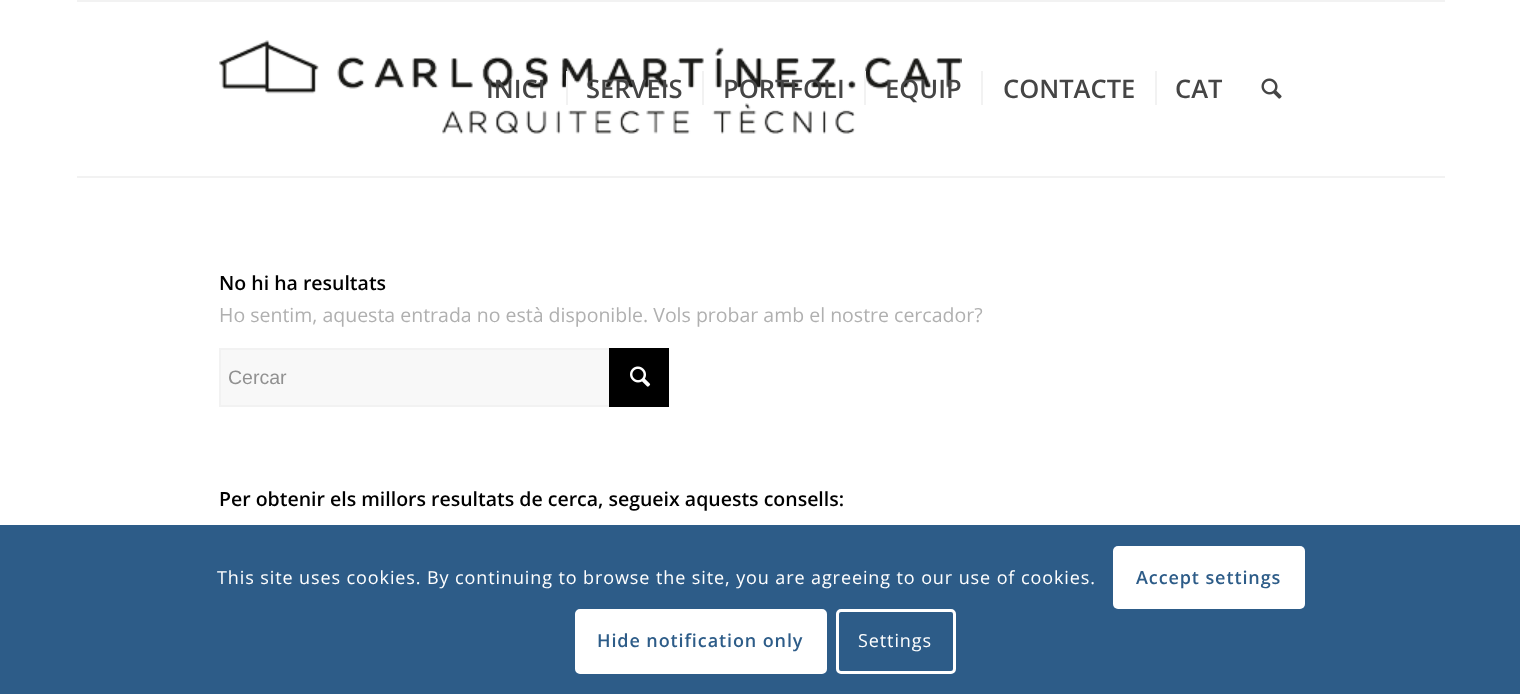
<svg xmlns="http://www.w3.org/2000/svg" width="1520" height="694">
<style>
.a{font:600 25.5px Open Sans;fill:#454545}
.b{font:600 19.5px Open Sans;fill:#000}
.c{font:19.5px Open Sans;fill:#b0b0b0}
.d{font:19.5px Liberation Sans;fill:#919191}
.e{font:18px Open Sans;letter-spacing:0.9px;fill:#fff}
.f{font:600 18px Open Sans;letter-spacing:0.9px;fill:#2d5c88}
</style>
<rect width="100%" height="100%" fill="#fff"/>
<path fill="#f2f2f2" d="M77 0h1368v2H77z"/>
<path fill="#f2f2f2" d="M77 176h1368v2H77z"/>
<image href="1.png" x="219" y="40" width="743" height="94"/>
<path fill="#f2f2f2" d="M566 71h2v34H566z"/>
<path fill="#f2f2f2" d="M702 71h2v34H702z"/>
<path fill="#f2f2f2" d="M864 71h2v34H864z"/>
<path fill="#f2f2f2" d="M981 71h2v34H981z"/>
<path fill="#f2f2f2" d="M1155 71h2v34H1155z"/>
<image href="2.png" x="1261" y="78" width="21" height="21"/>
<path fill="#f8f8f8" d="M221 350h388v55H221z"/>
<path fill="none" stroke="#f2f2f2" stroke-width="2" d="M220 349h448v57H220z"/>
<path fill="#000" d="M609 348h60v59H609z"/>
<image href="3.png" x="630" y="366" width="21" height="21"/>
<path fill="#2d5c88" d="M0 525h1520v169H0z"/>
<rect fill="#fff" x="1113" y="546" width="192" height="63" rx="5"/>
<rect fill="#fff" stroke="#fff" stroke-width="3" x="576.5" y="610.5" width="249" height="62" rx="3.5"/>
<rect fill="none" stroke="#fff" stroke-width="3" x="837.5" y="610.5" width="117" height="62" rx="3.5"/>
<text class="a" x="486" y="98">INICI</text>
<text class="a" x="586" y="98">SERVEIS</text>
<text class="a" x="723" y="98">PORTFOLI</text>
<text class="a" x="885" y="98">EQUIP</text>
<text class="a" x="1003" y="98">CONTACTE</text>
<text class="a" x="1175" y="98">CAT</text>
<text class="b" x="219" y="290">No hi ha resultats</text>
<text class="c" x="219" y="322">Ho sentim, aquesta entrada no està disponible. Vols probar amb el nostre cercador?</text>
<text class="d" x="228" y="384">Cercar</text>
<text class="b" x="219" y="506">Per obtenir els millors resultats de cerca, segueix aquests consells:</text>
<text class="e" x="217" y="584">This site uses cookies. By continuing to browse the site, you are agreeing to our use of cookies.</text>
<text class="f" x="1136" y="584">Accept settings</text>
<text class="f" x="597" y="647">Hide notification only</text>
<text class="e" x="858" y="647">Settings</text>
</svg>
